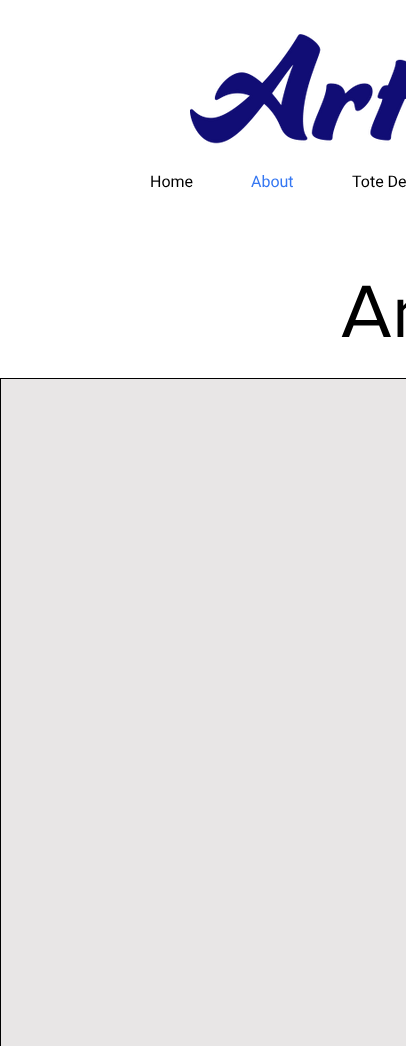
<svg xmlns="http://www.w3.org/2000/svg" width="406" height="1046">
<style>
.a{font:16px Roboto;fill:#000}
.b{font:16px Roboto;fill:#3577f2}
.c{font:77px 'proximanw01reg';fill:#000}
</style>
<rect width="100%" height="100%" fill="#fff"/>
<image href="1.png" x="190" y="34" width="216" height="110"/>
<path fill="#000" d="M0 378h406v668H0z"/>
<path fill="#e8e6e6" d="M1 379h405v667H1z"/>
<text class="a" x="150" y="187">Home</text>
<text class="b" x="251" y="187">About</text>
<text class="a" x="352" y="187">Tote De</text>
<text class="c" x="341" y="337">Ar</text>
</svg>
